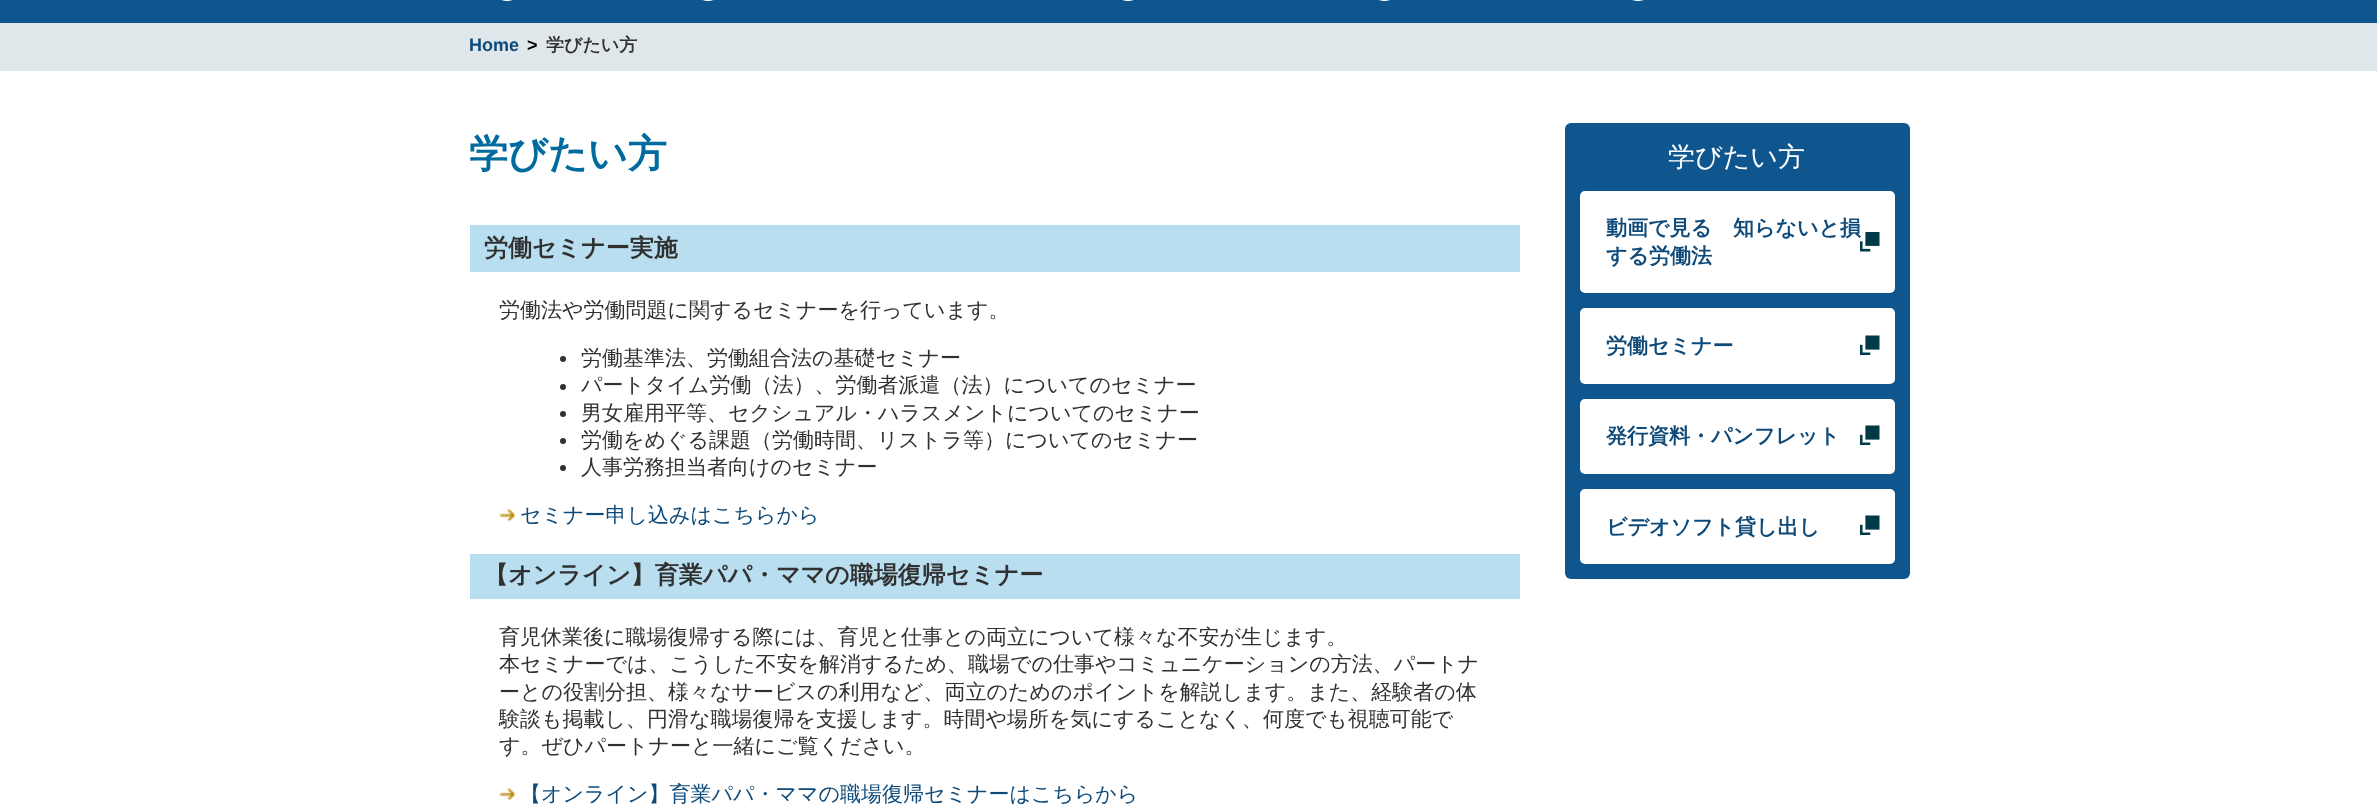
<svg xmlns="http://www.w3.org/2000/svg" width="2377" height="810">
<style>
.a{font:bold 18px Liberation Sans;fill:#0e4a79}
.b{font:bold 18px Liberation Sans;fill:#000}
.c{font:bold 18px WenQuanYi Zen Hei;fill:#313131}
.d{font:bold 39px WenQuanYi Zen Hei;fill:#006b9e}
.e{font:bold 24px WenQuanYi Zen Hei;fill:#313131}
.f{font:500 21px WenQuanYi Zen Hei;fill:#313131}
.g{font:500 21px WenQuanYi Zen Hei;fill:#0e4a79}
.h{font:500 27px WenQuanYi Zen Hei;fill:#fff}
.i{font:bold 21px WenQuanYi Zen Hei;fill:#0e4a79}
</style>
<rect width="100%" height="100%" fill="#fff"/>
<path fill="#0f558e" d="M0 0h2377v23H0z"/>
<image href="1.png" x="501" y="0" width="12" height="1"/>
<image href="2.png" x="702" y="0" width="12" height="1"/>
<image href="3.png" x="1122" y="0" width="12" height="1"/>
<image href="4.png" x="1378" y="0" width="13" height="1"/>
<image href="2.png" x="1632" y="0" width="12" height="1"/>
<path fill="#e0e7eb" d="M0 23h2377v48H0z"/>
<path fill="#b9deef" d="M470 225h1050v47H470z"/>
<circle fill="#313131" cx="563" cy="359" r="3"/>
<circle fill="#313131" cx="563" cy="387" r="3"/>
<circle fill="#313131" cx="563" cy="414" r="3"/>
<circle fill="#313131" cx="563" cy="441" r="3"/>
<circle fill="#313131" cx="563" cy="468" r="3"/>
<image href="5.png" x="499" y="509" width="16" height="13"/>
<path fill="#b9deef" d="M470 554h1050v45H470z"/>
<image href="5.png" x="499" y="788" width="16" height="13"/>
<rect fill="#0f558e" x="1565" y="123" width="345" height="456" rx="6"/>
<rect fill="#fff" x="1580" y="191" width="315" height="102" rx="5"/>
<image href="6.png" x="1860" y="232" width="20" height="20"/>
<rect fill="#fff" x="1580" y="308" width="315" height="76" rx="5"/>
<image href="7.png" x="1860" y="335" width="20" height="20"/>
<rect fill="#fff" x="1580" y="399" width="315" height="75" rx="5"/>
<image href="7.png" x="1860" y="425" width="20" height="20"/>
<rect fill="#fff" x="1580" y="489" width="315" height="75" rx="5"/>
<image href="7.png" x="1860" y="515" width="20" height="20"/>
<text class="a" x="469" y="51">Home</text>
<text class="b" x="527" y="51">&gt;</text>
<text class="c" x="546" y="51">学びたい方</text>
<text class="d" x="469" y="167">学びたい方</text>
<text class="e" x="484" y="256">労働セミナー実施</text>
<text class="f" x="499" y="317">労働法や労働問題に関するセミナーを行っています。</text>
<text class="f" x="581" y="365">労働基準法、労働組合法の基礎セミナー</text>
<text class="f" x="581" y="392">パートタイム労働（法）、労働者派遣（法）についてのセミナー</text>
<text class="f" x="581" y="420">男女雇用平等、セクシュアル・ハラスメントについてのセミナー</text>
<text class="f" x="581" y="447">労働をめぐる課題（労働時間、リストラ等）についてのセミナー</text>
<text class="f" x="581" y="474">人事労務担当者向けのセミナー</text>
<text class="g" x="520" y="522">セミナー申し込みはこちらから</text>
<text class="e" x="484" y="583">【オンライン】育業パパ・ママの職場復帰セミナー</text>
<text class="f" x="499" y="644">育児休業後に職場復帰する際には、育児と仕事との両立について様々な不安が生じます。</text>
<text class="f" x="499" y="671">本セミナーでは、こうした不安を解消するため、職場での仕事やコミュニケーションの方法、パートナ</text>
<text class="f" x="499" y="699">ーとの役割分担、様々なサービスの利用など、両立のためのポイントを解説します。また、経験者の体</text>
<text class="f" x="499" y="726">験談も掲載し、円滑な職場復帰を支援します。時間や場所を気にすることなく、何度でも視聴可能で</text>
<text class="f" x="499" y="753">す。ぜひパートナーと一緒にご覧ください。</text>
<text class="g" x="520" y="801">【オンライン】育業パパ・ママの職場復帰セミナーはこちらから</text>
<text class="h" x="1668" y="166">学びたい方</text>
<text class="i" x="1606" y="235">動画で見る　知らないと損</text>
<text class="i" x="1606" y="263">する労働法</text>
<text class="i" x="1606" y="353">労働セミナー</text>
<text class="i" x="1606" y="443">発行資料・パンフレット</text>
<text class="i" x="1606" y="534">ビデオソフト貸し出し</text>
</svg>
